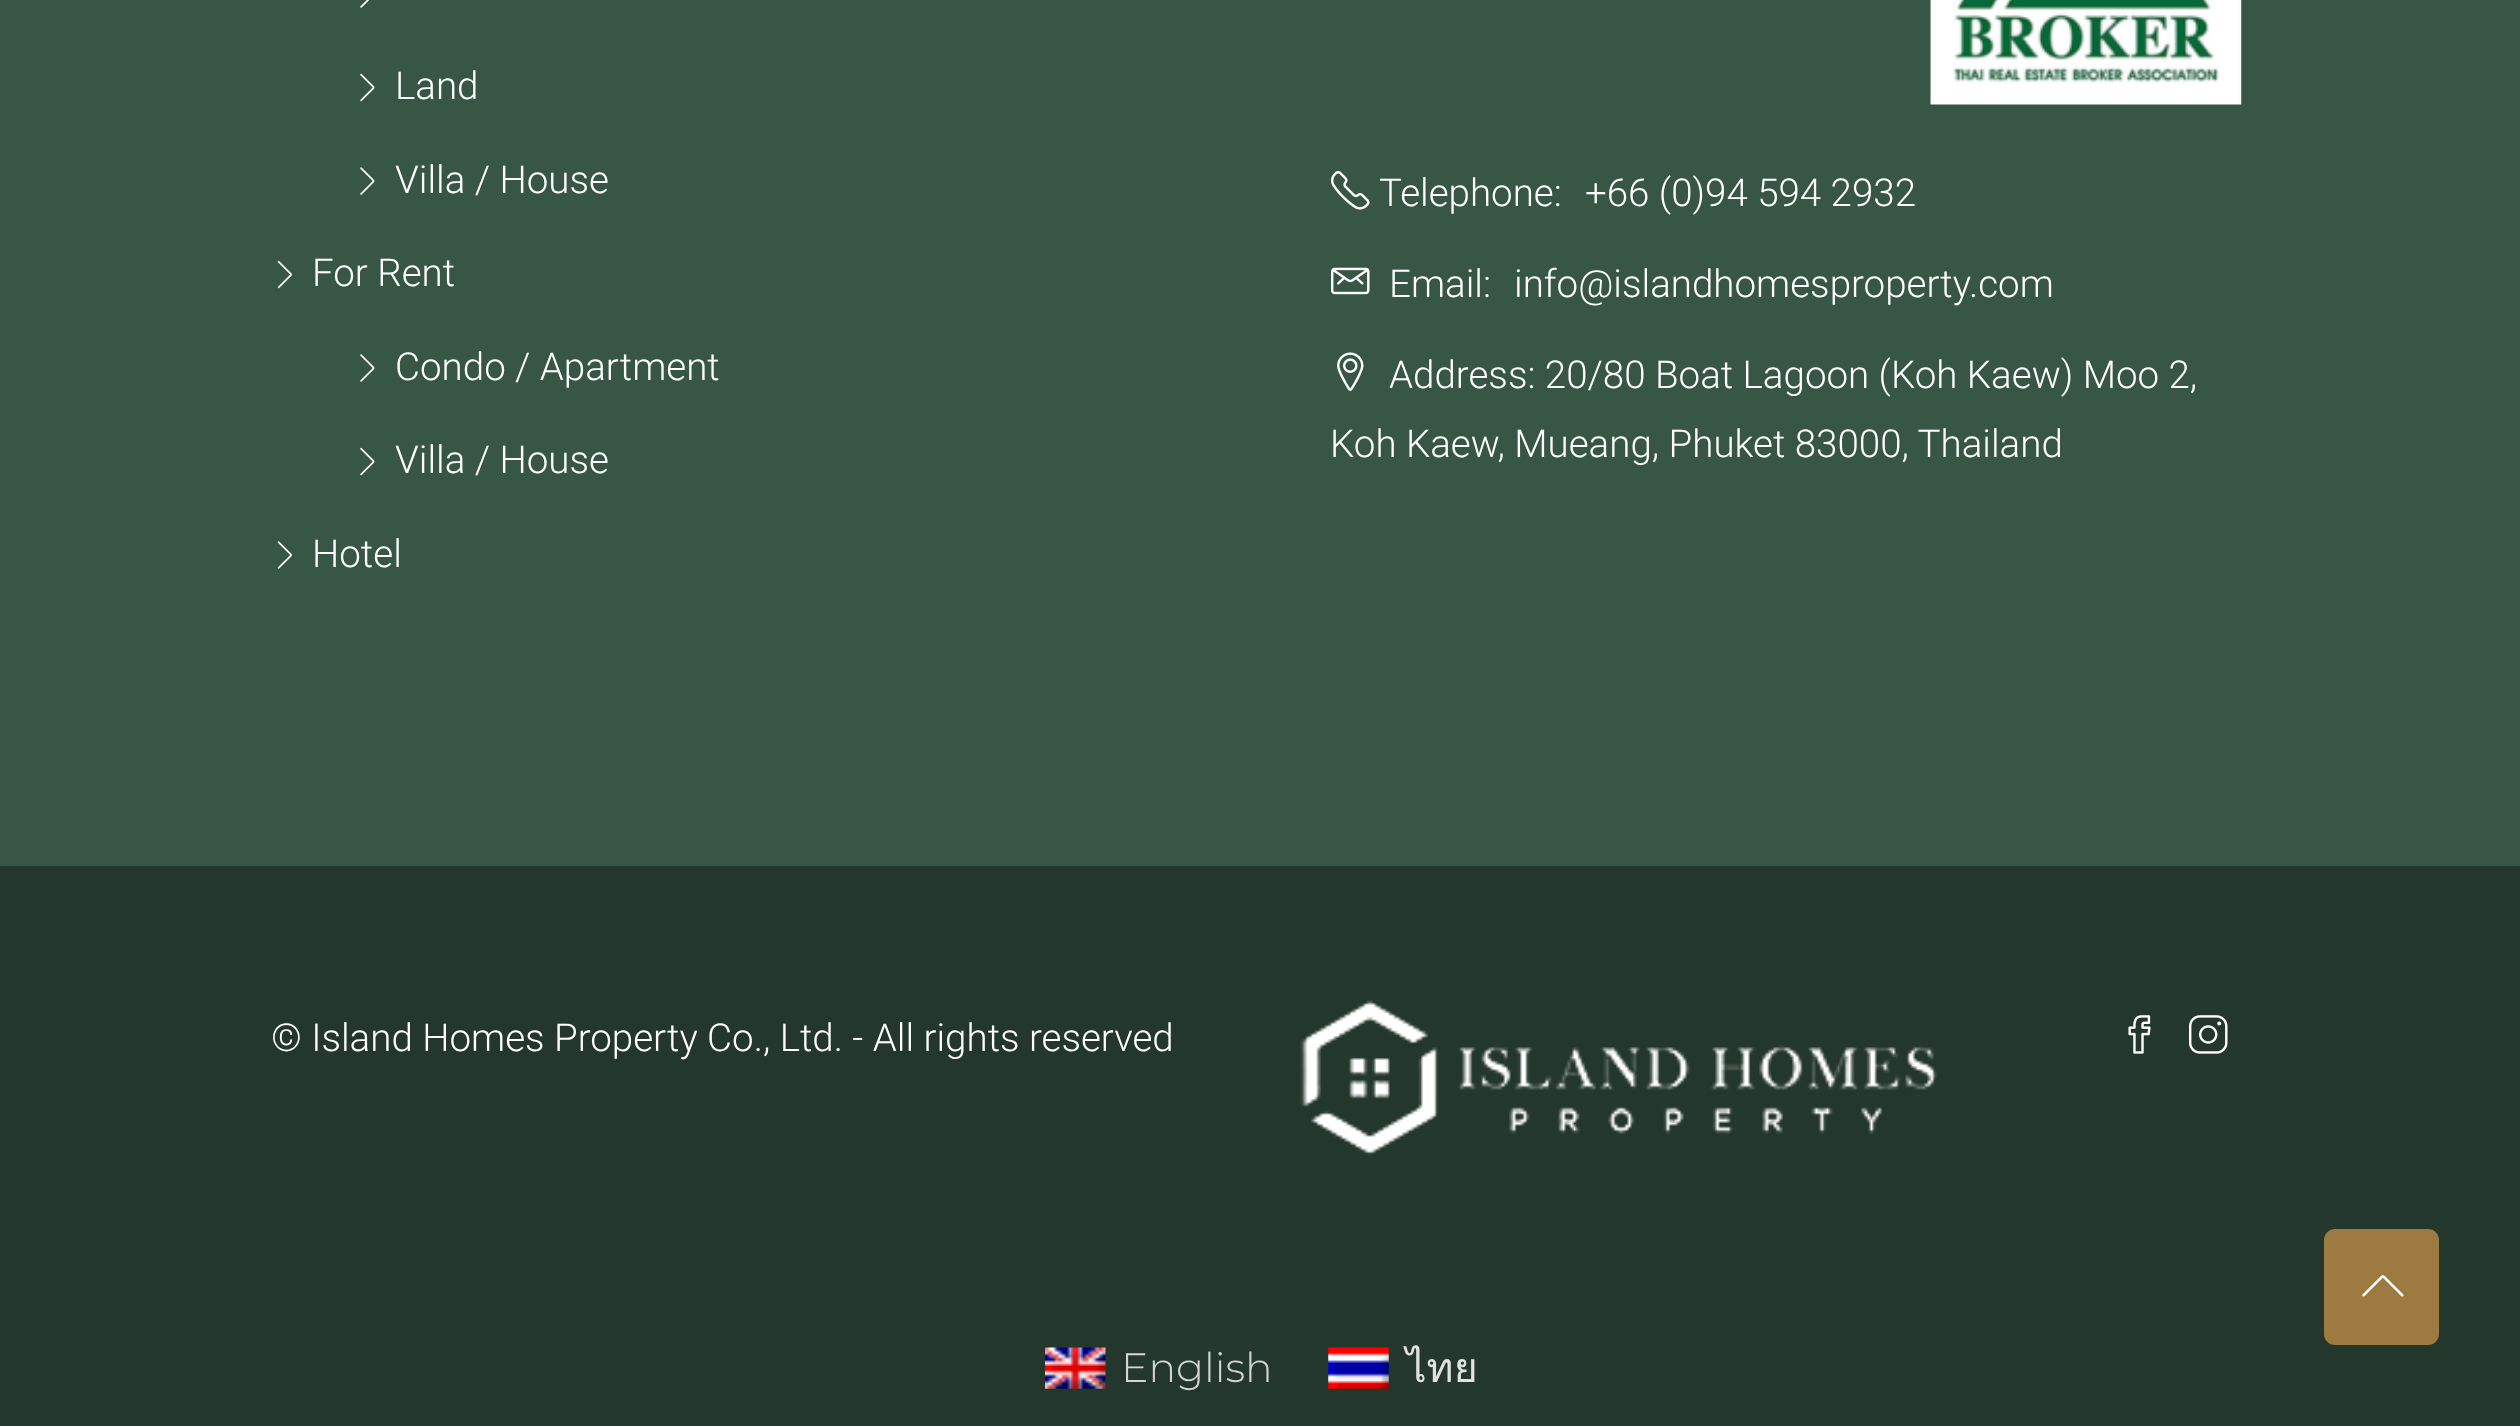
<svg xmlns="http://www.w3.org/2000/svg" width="2520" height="1426">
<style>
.a{font:300 38.5px Roboto;fill:#fff}
.b{font:300 41px Montserrat;fill:#d4d4d4}
.c{font:41px Loma;fill:#e2e2e2}
</style>
<rect width="100%" height="100%" fill="#375645"/>
<image href="1.png" x="360" y="0" width="10" height="8"/>
<image href="2.png" x="360" y="73" width="15" height="29"/>
<image href="3.png" x="360" y="167" width="15" height="28"/>
<image href="4.png" x="277" y="260" width="15" height="29"/>
<image href="3.png" x="360" y="354" width="15" height="28"/>
<image href="2.png" x="360" y="447" width="15" height="29"/>
<image href="5.png" x="277" y="541" width="15" height="28"/>
<image href="6.png" x="1930" y="0" width="312" height="105"/>
<image href="7.png" x="1331" y="171" width="39" height="39"/>
<image href="8.png" x="1331" y="267" width="39" height="28"/>
<image href="9.png" x="1337" y="352" width="27" height="39"/>
<path fill="#23372c" d="M0 866h2520v560H0z"/>
<image href="10.png" x="1300" y="1000" width="637" height="156"/>
<image href="11.png" x="2128" y="1015" width="23" height="39"/>
<image href="12.png" x="2189" y="1015" width="39" height="39"/>
<rect fill="#9d7a40" stroke="#9d7a40" stroke-width="3" x="2325.5" y="1230.5" width="112" height="113" rx="9.5"/>
<image href="13.png" x="2362" y="1275" width="42" height="22"/>
<image href="14.png" x="1045" y="1347" width="61" height="42"/>
<image href="15.png" x="1328" y="1347" width="61" height="42"/>
<text class="a" x="395" y="99">Land</text>
<text class="a" x="395" y="193">Villa / House</text>
<text class="a" x="312" y="286">For Rent</text>
<text class="a" x="395" y="380">Condo / Apartment</text>
<text class="a" x="395" y="473">Villa / House</text>
<text class="a" x="312" y="567">Hotel</text>
<text class="a" x="1379" y="206">Telephone:</text>
<text class="a" x="1585" y="206">+66 (0)94 594 2932</text>
<text class="a" x="1389" y="297">Email:</text>
<text class="a" x="1514" y="297">info@islandhomesproperty.com</text>
<text class="a" x="1389" y="388">Address: 20/80 Boat Lagoon (Koh Kaew) Moo 2,</text>
<text class="a" x="1330" y="457">Koh Kaew, Mueang, Phuket 83000, Thailand</text>
<text class="a" x="271" y="1051">© Island Homes Property Co., Ltd. - All rights reserved</text>
<text class="b" x="1121" y="1382">English</text>
<text class="c" x="1406" y="1382">ไทย</text>
</svg>
